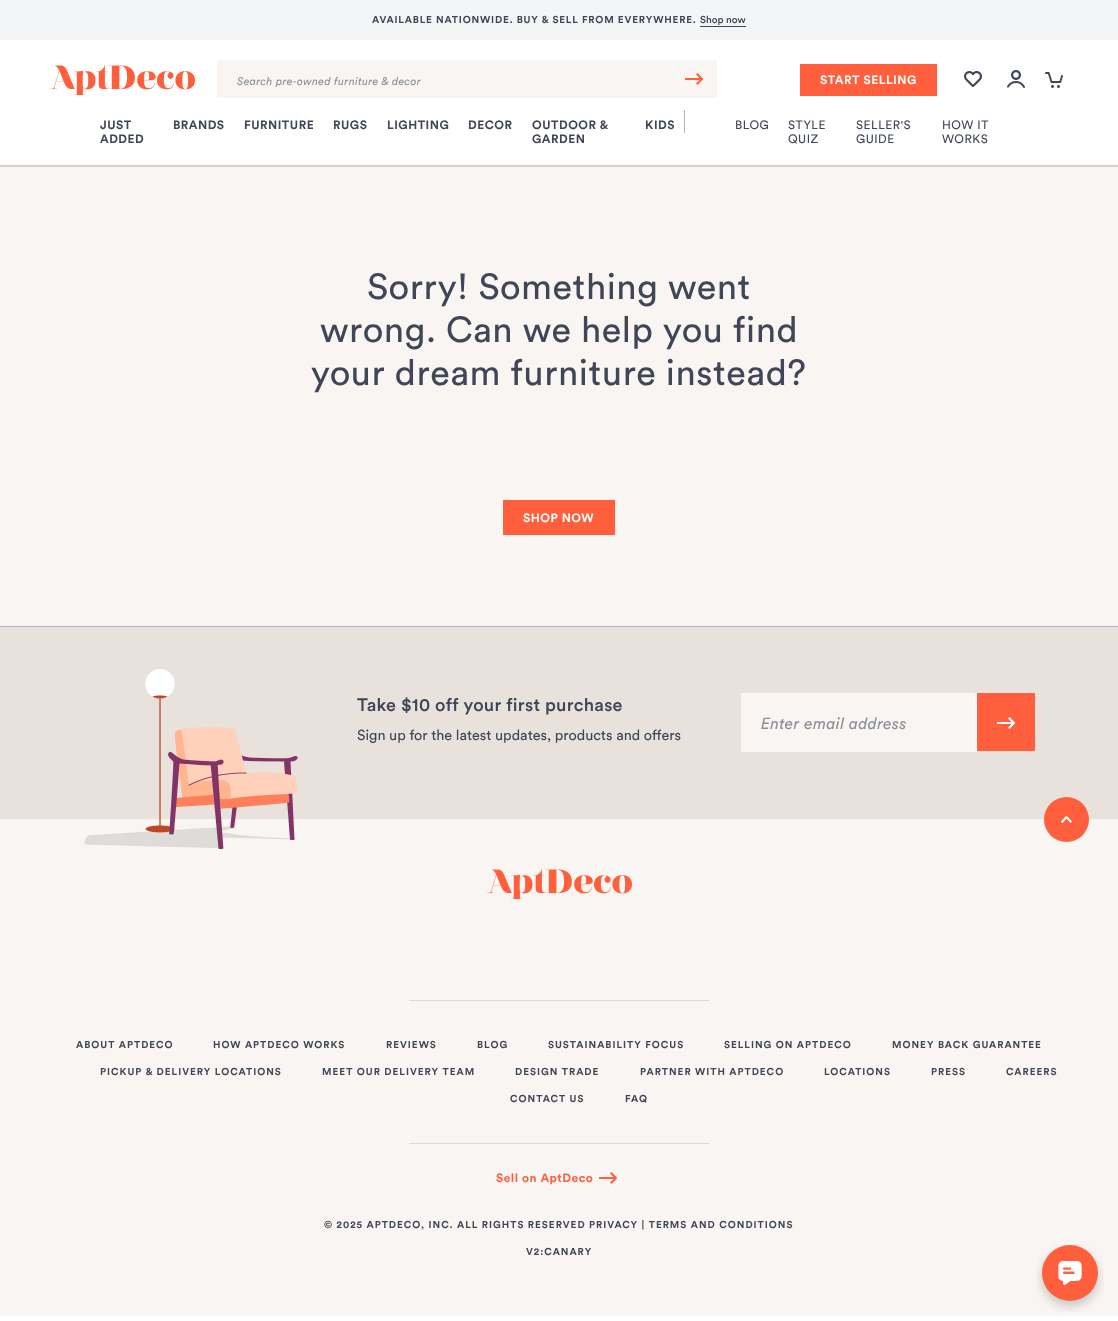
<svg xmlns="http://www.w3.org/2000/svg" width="1118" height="1321">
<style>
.a{font:bold 10px Circular;letter-spacing:0.8px;fill:#404656}
.b{font:500 10px Circular;fill:#404656}
.c{font:italic 11px Circular;letter-spacing:0.3px;fill:#8c9099}
.d{font:bold 12px Circular;letter-spacing:0.5px;fill:#fff}
.e{font:bold 12px Circular;letter-spacing:0.5px;fill:#404656}
.f{font:12px Circular;letter-spacing:0.5px;fill:#404656}
.g{font:36px Circular;letter-spacing:0.55px;fill:#404656}
.h{font:500 18px Circular;letter-spacing:0.25px;fill:#404656}
.i{font:14.4px Circular;fill:#404656}
.j{font:italic 16px Circular;letter-spacing:0.3px;fill:#8c9099}
.k{font:bold 9.95px Circular;letter-spacing:1px;fill:#404656}
.l{font:bold 12px Circular;letter-spacing:0.5px;fill:#ff5f3d}
</style>
<rect width="100%" height="100%" fill="#fff"/>
<path fill="#f4f5f7" d="M0 0h1118v40H0z"/>
<path fill="#404656" d="M700 26h46v1H700z"/>
<image href="1.png" x="50" y="65" width="145" height="30"/>
<path fill="#f8f5f2" d="M217 60h500v38H217z"/>
<image href="2.png" x="685" y="73" width="18" height="12"/>
<path fill="#ff5f3d" d="M800 64h137v32H800z"/>
<image href="3.png" x="964" y="71" width="18" height="16"/>
<image href="4.png" x="1007" y="70" width="18" height="18"/>
<image href="5.png" x="1045" y="72" width="18" height="16"/>
<path fill="#d3d0ce" d="M0 165h1118v2H0z"/>
<path fill="#b2b5bb" d="M684 110h1v23H684z"/>
<path fill="#f8f5f2" d="M0 167h1118v459H0z"/>
<path fill="#b2b5bb" d="M0 626h1118v1H0z"/>
<path fill="#ff5f3d" d="M503 500h112v35H503z"/>
<path fill="#e8e1dc" d="M0 627h1118v192H0z"/>
<path fill="#f8f5f2" d="M0 819h1118v497H0z"/>
<image href="6.png" x="84" y="669" width="214" height="180"/>
<path fill="#f8f5f2" d="M741 693h236v59H741z"/>
<path fill="#ff5f3d" d="M977 693h58v58H977z"/>
<image href="7.png" x="997" y="717" width="18" height="12"/>
<circle fill="#ff5f3d" cx="1066.5" cy="819.5" r="22.5"/>
<path fill="#fff" d="M1066.5 818.5l-4 4.5l-1.5-1.5c6.5-7 4.5-7 11 0l-1.5 1.5z"/>
<image href="8.png" x="487" y="869" width="145" height="30"/>
<path fill="#d9dadd" d="M409 1000h300v1H409z"/>
<path fill="#d9dadd" d="M409 1143h300v1H409z"/>
<image href="2.png" x="599" y="1172" width="18" height="12"/>
<image href="9.png" x="1036" y="1244" width="68" height="68"/>
<text class="a" x="372" y="23">AVAILABLE NATIONWIDE. BUY &amp; SELL FROM EVERYWHERE.</text>
<text class="b" x="700" y="23">Shop now</text>
<text class="c" x="237" y="85">Search pre-owned furniture &amp; decor</text>
<text class="d" x="820" y="84">START SELLING</text>
<text class="e" x="100" y="129">JUST</text>
<text class="e" x="100" y="143">ADDED</text>
<text class="e" x="173" y="129">BRANDS</text>
<text class="e" x="244" y="129">FURNITURE</text>
<text class="e" x="333" y="129">RUGS</text>
<text class="e" x="387" y="129">LIGHTING</text>
<text class="e" x="468" y="129">DECOR</text>
<text class="e" x="532" y="129">OUTDOOR &amp;</text>
<text class="e" x="532" y="143">GARDEN</text>
<text class="e" x="645" y="129">KIDS</text>
<text class="f" x="735" y="129">BLOG</text>
<text class="f" x="788" y="129">STYLE</text>
<text class="f" x="788" y="143">QUIZ</text>
<text class="f" x="856" y="129">SELLER'S</text>
<text class="f" x="856" y="143">GUIDE</text>
<text class="f" x="942" y="129">HOW IT</text>
<text class="f" x="942" y="143">WORKS</text>
<text class="g" x="367" y="299">Sorry! Something went</text>
<text class="g" x="320" y="342">wrong. Can we help you find</text>
<text class="g" x="311" y="385">your dream furniture instead?</text>
<text class="d" x="523" y="522">SHOP NOW</text>
<text class="h" x="357" y="711">Take $10 off your first purchase</text>
<text class="i" x="357" y="740">Sign up for the latest updates, products and offers</text>
<text class="j" x="761" y="729">Enter email address</text>
<text class="k" x="76" y="1048">ABOUT APTDECO</text>
<text class="k" x="213" y="1048">HOW APTDECO WORKS</text>
<text class="k" x="386" y="1048">REVIEWS</text>
<text class="k" x="477" y="1048">BLOG</text>
<text class="k" x="548" y="1048">SUSTAINABILITY FOCUS</text>
<text class="k" x="724" y="1048">SELLING ON APTDECO</text>
<text class="k" x="892" y="1048">MONEY BACK GUARANTEE</text>
<text class="k" x="100" y="1075">PICKUP &amp; DELIVERY LOCATIONS</text>
<text class="k" x="322" y="1075">MEET OUR DELIVERY TEAM</text>
<text class="k" x="515" y="1075">DESIGN TRADE</text>
<text class="k" x="640" y="1075">PARTNER WITH APTDECO</text>
<text class="k" x="824" y="1075">LOCATIONS</text>
<text class="k" x="931" y="1075">PRESS</text>
<text class="k" x="1006" y="1075">CAREERS</text>
<text class="k" x="510" y="1102">CONTACT US</text>
<text class="k" x="625" y="1102">FAQ</text>
<text class="l" x="496" y="1182">Sell on AptDeco</text>
<text class="k" x="324" y="1228">© 2025 APTDECO, INC. ALL RIGHTS RESERVED PRIVACY | TERMS AND CONDITIONS</text>
<text class="k" x="526" y="1255">V2:CANARY</text>
</svg>
